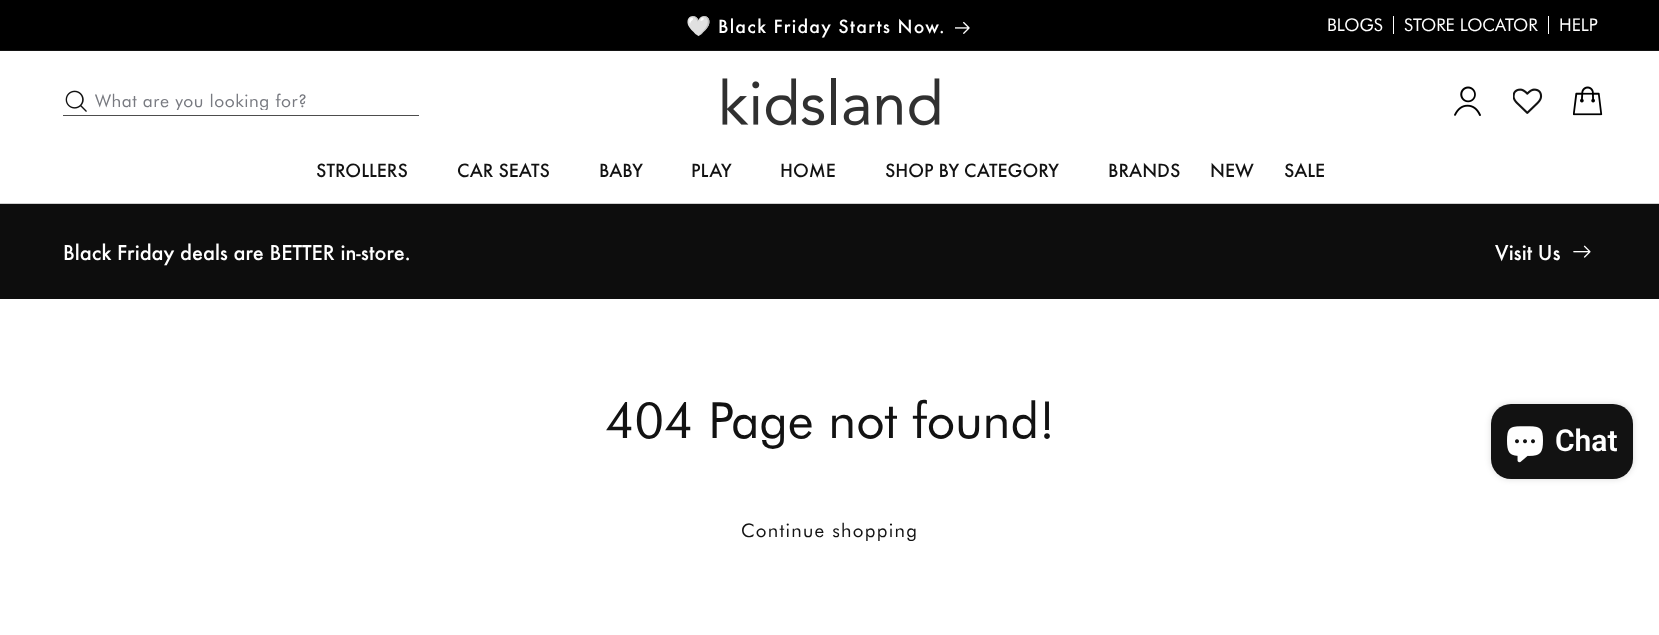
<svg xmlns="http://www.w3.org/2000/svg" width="1659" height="635">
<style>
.a{font:20px Noto Color Emoji;letter-spacing:1.25px;fill:#fff}
.b{font:500 20px Futura;letter-spacing:1.25px;fill:#fff}
.c{font:17.5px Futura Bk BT;fill:#fff}
.d{font:17.5px Futura Bk BT;letter-spacing:0.5px;fill:#787a80}
.e{font:500 20px Futura;fill:#121212}
.f{font:500 22.5px Futura;fill:#fff}
.g{font:50px Futura Bk BT;fill:#121212}
.h{font:18.75px Futura Bk BT;letter-spacing:1.25px;fill:#121212}
.i{font:600 30px Roboto;fill:#fff}
</style>
<defs>
<clipPath id="clip1"><path d="M95 90h291v20H95z"/></clipPath>
</defs>
<rect width="100%" height="100%" fill="#fff"/>
<path fill="#000" d="M0 0h1659v50H0z"/>
<path fill="#141414" d="M0 50h1659v1H0z"/>
<image href="1.png" x="955" y="21" width="15" height="13"/>
<path fill="#fff" d="M1393 16h1v18H1393z"/>
<path fill="#fff" d="M1548 16h1v18H1548z"/>
<path fill="#4d4d4d" d="M63 115h356v1H63z"/>
<image href="2.png" x="65" y="90" width="22" height="22"/>
<image href="3.png" x="722" y="78" width="218" height="48"/>
<image href="4.png" x="1454" y="86" width="27" height="30"/>
<image href="5.png" x="1513" y="88" width="30" height="26"/>
<image href="6.png" x="1573" y="86" width="30" height="30"/>
<path fill="#d0d0d0" d="M0 203h1659v1H0z"/>
<path fill="#0d0d0d" d="M0 204h1659v95H0z"/>
<image href="7.png" x="1573" y="245" width="18" height="13"/>
<rect fill="#00000026" filter="blur(3px)" x="1491" y="404" width="142" height="75" rx="20"/>
<rect fill="#121212" x="1491" y="404" width="142" height="75" rx="20"/>
<image href="8.png" x="1507" y="426" width="36" height="37"/>
<text class="a" x="686" y="33">🤍</text>
<text class="b" x="718" y="33">Black Friday Starts Now.</text>
<text class="c" x="1327" y="31">BLOGS</text>
<text class="c" x="1404" y="31">STORE LOCATOR</text>
<text class="c" x="1559" y="31">HELP</text>
<g clip-path="url(#clip1)">
<text class="d" x="95" y="107">What are you looking for?</text>
</g>
<text class="e" x="316" y="177">STROLLERS</text>
<text class="e" x="457" y="177">CAR SEATS</text>
<text class="e" x="599" y="177">BABY</text>
<text class="e" x="691" y="177">PLAY</text>
<text class="e" x="780" y="177">HOME</text>
<text class="e" x="885" y="177">SHOP BY CATEGORY</text>
<text class="e" x="1108" y="177">BRANDS</text>
<text class="e" x="1210" y="177">NEW</text>
<text class="e" x="1284" y="177">SALE</text>
<text class="f" x="63" y="260">Black Friday deals are BETTER in-store.</text>
<text class="f" x="1495" y="260">Visit Us</text>
<text class="g" x="605" y="438">404 Page not found!</text>
<text class="h" x="741" y="537">Continue shopping</text>
<text class="i" x="1555" y="451">Chat</text>
</svg>
